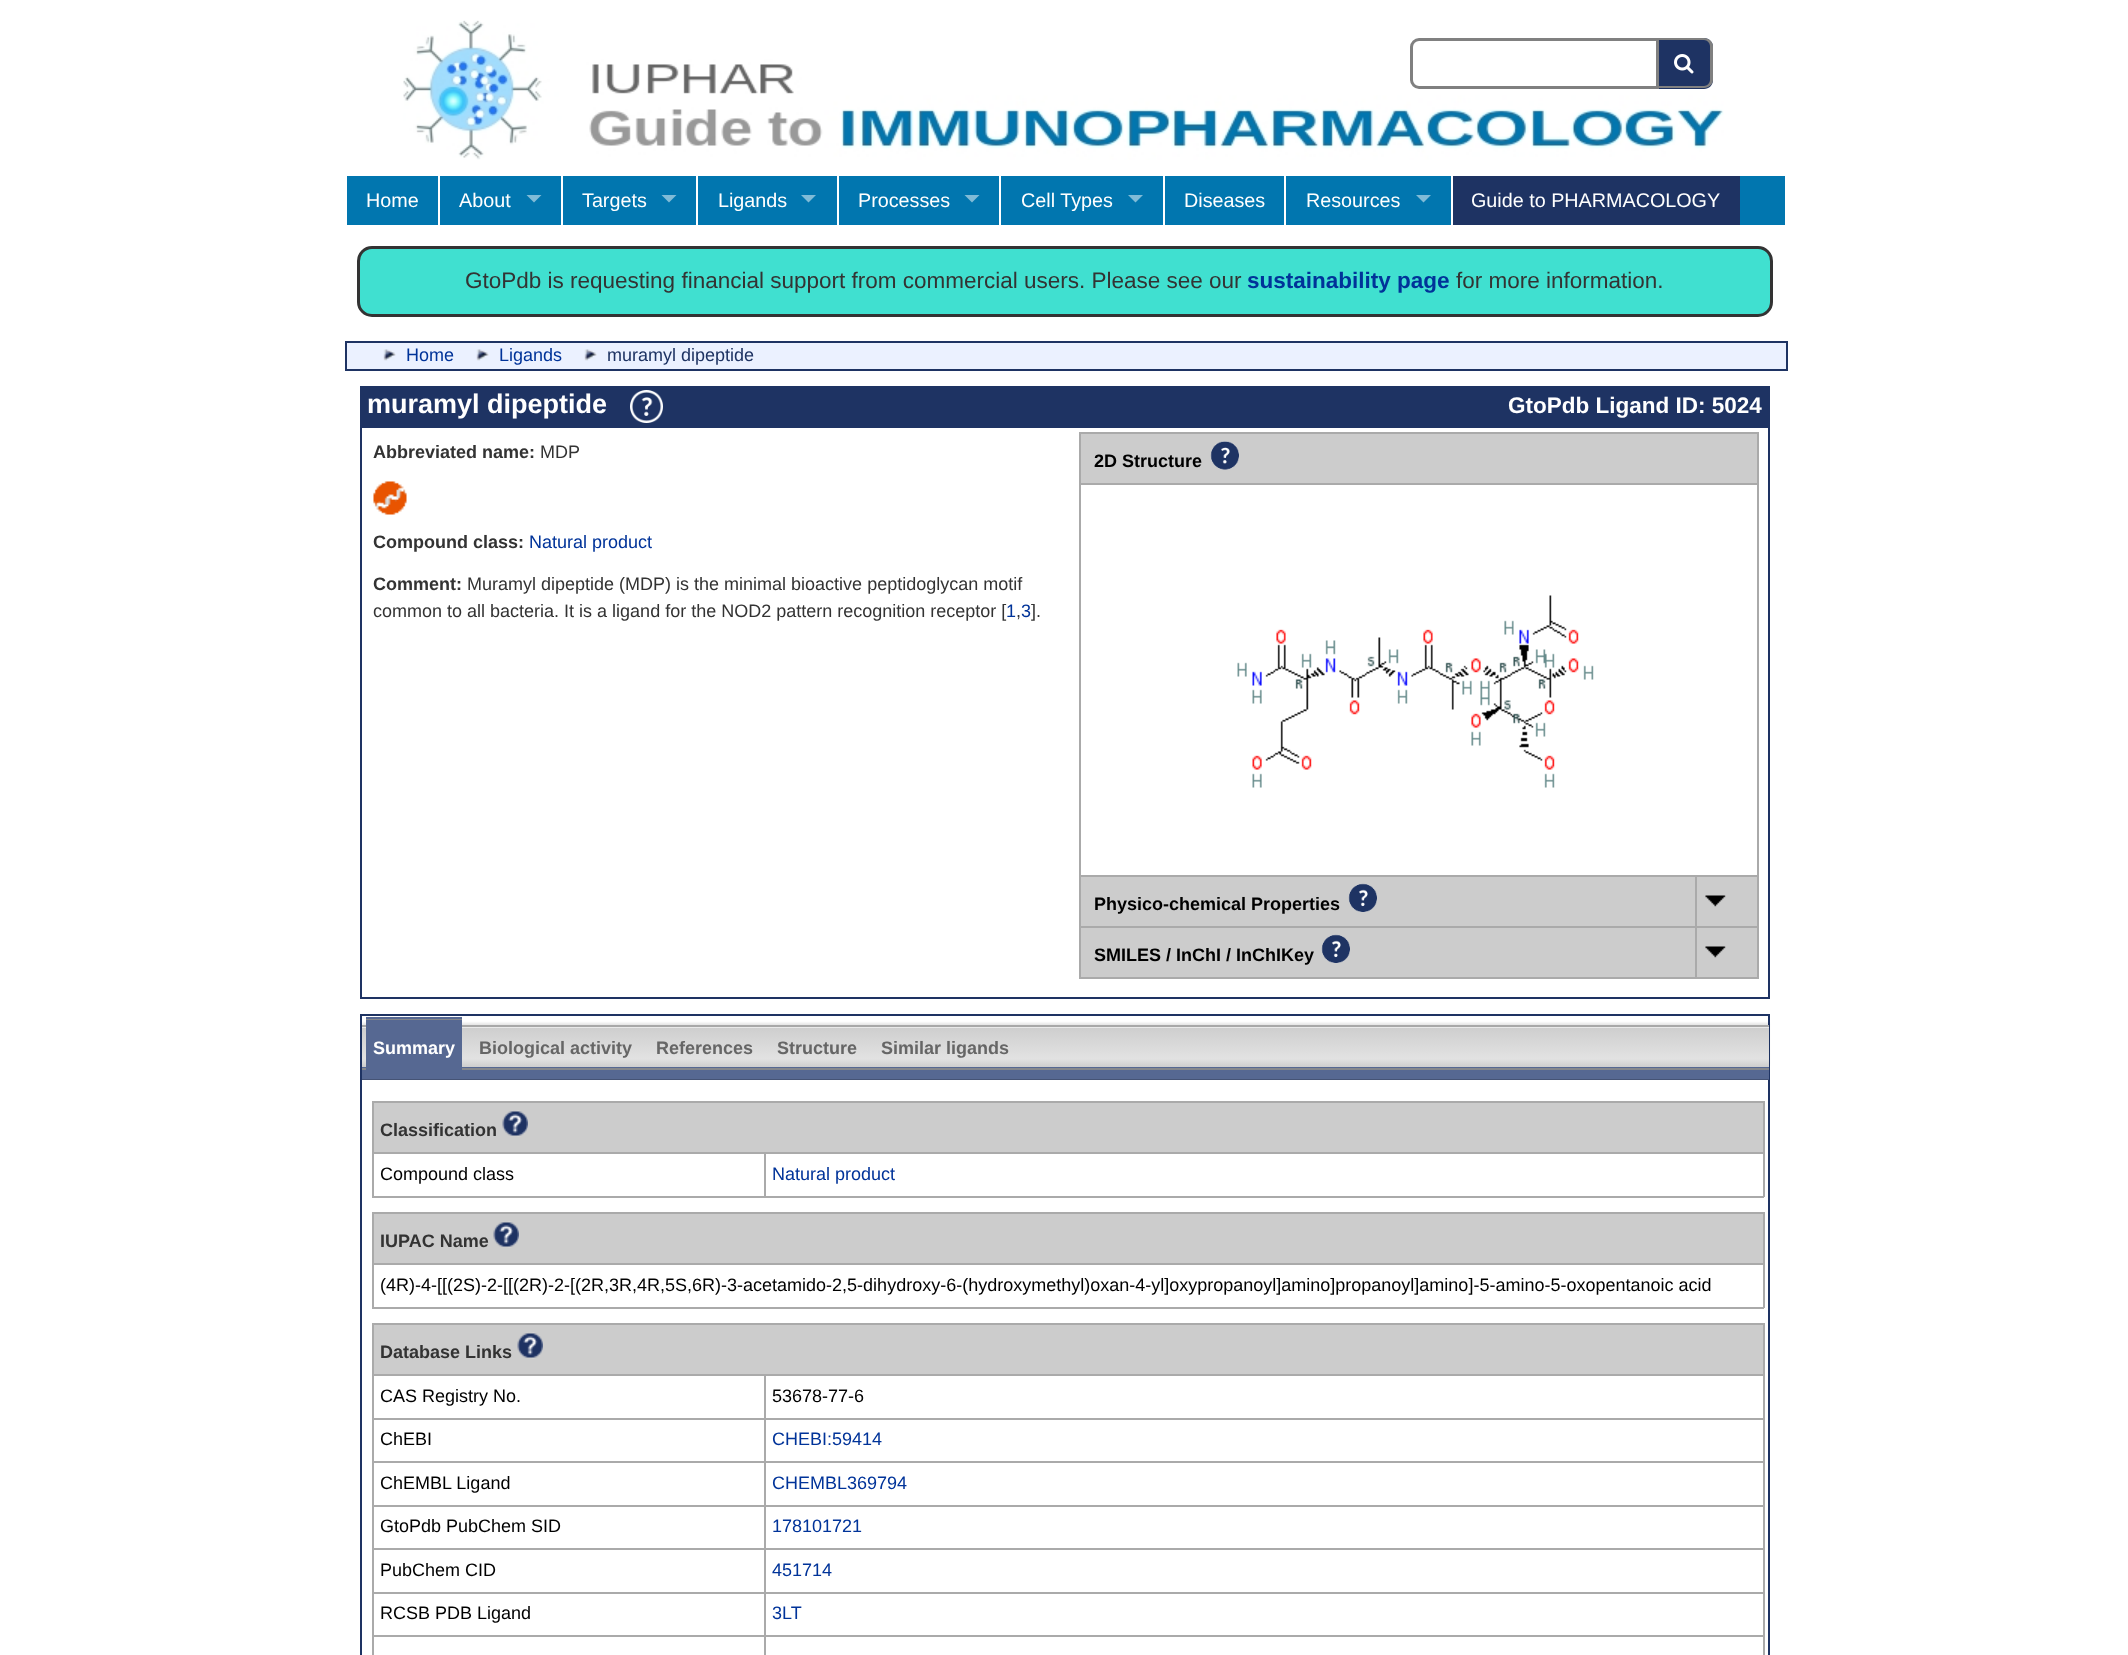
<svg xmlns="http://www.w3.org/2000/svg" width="2128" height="1655">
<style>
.a{font:19.75px Liberation Sans;fill:#fff}
.b{font:22.5px Liberation Sans;fill:#333}
.c{font:bold 22.5px Liberation Sans;fill:#039}
.d{font:18px Liberation Sans;fill:#039}
.e{font:18px Liberation Sans;fill:#1e3363}
.f{font:bold 27px Liberation Sans;fill:#fff}
.g{font:bold 22.5px Liberation Sans;fill:#fff}
.h{font:bold 18px Liberation Sans;fill:#333}
.i{font:18px Liberation Sans;fill:#333}
.j{font:bold 18px Liberation Sans;fill:#000}
.k{font:bold 18px Liberation Sans;fill:#fff}
.l{font:bold 18px Liberation Sans;fill:#666}
.m{font:18px Liberation Sans;fill:#000}
</style>
<defs>
<linearGradient id="g1" gradientUnits="userSpaceOnUse" x1="1065" y1="1026" x2="1065" y2="1067"><stop offset="0" stop-color="#cdcdcd"/><stop offset="0.8" stop-color="#e2e2e2"/><stop offset="1" stop-color="#cdcdcd"/></linearGradient>
</defs>
<rect width="100%" height="100%" fill="#fff"/>
<image href="1.png" x="403" y="20" width="1321" height="140"/>
<path fill="none" stroke="#808080" stroke-width="3" d="M1419 39.5h238.5v48h-238.5c-4 0-7.5-3.5-7.5-7.5v-33c0-4 3.5-7.5 7.5-7.5z"/>
<path fill="#1e3363" d="M1659 38h45c5 0 9 4 9 9v33c0 5-4 9-9 9h-45z"/>
<path fill="#808080" fill-rule="evenodd" d="M1659 38h45c5 0 9 4 9 8v34c0 4-4 8-9 8h-45zm0 2h45c3 0 6 3 6 6v34c0 3-3 6-6 6h-45z"/>
<image href="2.png" x="1674" y="54" width="20" height="20"/>
<path fill="#0176af" d="M347 176h1438v49H347z"/>
<path fill="#fff" d="M438 176h2v49H438z"/>
<path fill="#80bbd7" d="M526.5 195h15l-7.5 7.5z"/>
<path fill="#fff" d="M561 176h2v49H561z"/>
<path fill="#80bbd7" d="M661.5 195h15l-7.5 7.5z"/>
<path fill="#fff" d="M696 176h2v49H696z"/>
<path fill="#80bbd7" d="M801 195h15l-7.5 7.5z"/>
<path fill="#fff" d="M837 176h2v49H837z"/>
<path fill="#80bbd7" d="M964.5 195h15l-7.5 7.5z"/>
<path fill="#fff" d="M999 176h2v49H999z"/>
<path fill="#80bbd7" d="M1128 195h15l-7.5 7.5z"/>
<path fill="#fff" d="M1163 176h2v49H1163z"/>
<path fill="#fff" d="M1284 176h2v49H1284z"/>
<path fill="#80bbd7" d="M1416 195h15l-7.5 7.5z"/>
<path fill="#1e3363" d="M1453 176h287v49H1453z"/>
<path fill="#fff" d="M1451 176h2v49H1451z"/>
<rect fill="#40e0d0" stroke="#333" stroke-width="3" x="358.5" y="247.5" width="1413" height="68" rx="13.5"/>
<path fill="#ebf1ff" stroke="#1e3363" stroke-width="2" d="M346 342h1441v28H346z"/>
<image href="3.png" x="383" y="349" width="13" height="12"/>
<image href="4.png" x="476" y="349" width="13" height="12"/>
<image href="3.png" x="584" y="349" width="13" height="12"/>
<path fill="#1e3363" d="M360 386h1410v40H360z"/>
<image href="5.png" x="630" y="390" width="33" height="33"/>
<path fill="none" stroke="#1e3363" stroke-width="2" d="M361 427h1408v571H361z"/>
<image href="6.png" x="373" y="481" width="34" height="34"/>
<path fill="#aaa" d="M1079 432h679v2H1079z"/>
<path fill="#aaa" d="M1079 483h679v2H1079z"/>
<path fill="#aaa" d="M1079 875h679v2H1079z"/>
<path fill="#aaa" d="M1079 926h679v2H1079z"/>
<path fill="#aaa" d="M1079 977h679v2H1079z"/>
<path fill="#aaa" d="M1757 926h2v52H1757z"/>
<path fill="#aaa" d="M1757 875h2v52H1757z"/>
<path fill="#aaa" d="M1757 483h2v393H1757z"/>
<path fill="#aaa" d="M1757 432h2v53H1757z"/>
<path fill="#aaa" d="M1079 926h2v52H1079z"/>
<path fill="#aaa" d="M1079 875h2v52H1079z"/>
<path fill="#aaa" d="M1079 483h2v393H1079z"/>
<path fill="#aaa" d="M1079 432h2v53H1079z"/>
<path fill="#ccc" d="M1081 434h676v49H1081z"/>
<image href="7.png" x="1210" y="441" width="29" height="29"/>
<image href="8.png" x="1237" y="595" width="357" height="193"/>
<path fill="#ccc" d="M1081 877h614v49H1081z"/>
<image href="9.png" x="1348" y="883" width="29" height="29"/>
<path fill="#ccc" d="M1697 877h60v49H1697z"/>
<image href="10.png" x="1705" y="895" width="21" height="12"/>
<path fill="#ccc" d="M1081 928h614v49H1081z"/>
<image href="9.png" x="1321" y="934" width="29" height="29"/>
<path fill="#ccc" d="M1697 928h60v49H1697z"/>
<path fill="#aaa" d="M1695 875h2v103H1695z"/>
<image href="10.png" x="1705" y="946" width="21" height="12"/>
<path fill="#aaa" d="M1757 978h2v1H1757z"/>
<path fill="none" stroke="#1e3363" stroke-width="2" d="M361 1015h1408v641H361z"/>
<path fill="#0000001a" filter="blur(1px)" d="M362 1023h1407v42H362z"/>
<path fill="#455375" d="M362 1066v14h1407v-42h-1v28z"/>
<path fill="#566892" d="M362 1066v13h1407v-42h-1v29z"/>
<path fill="#85878c" d="M362 1066v4h1407v-42h-1v38z"/>
<path fill="#566892" d="M362 1066v2h1407v-42h-1v40z"/>
<path fill="url(#g1)" d="M362 1028h1407v39H362z"/>
<path fill="#e9e9e9" d="M362 1027h1407v1H362z"/>
<path fill="#a8a8a8" d="M362 1025h1407v2H362z"/>
<path fill="#566892" d="M366 1017h96v2H366z"/>
<path fill="#85878c" d="M366 1019h96v1H366z"/>
<path fill="#566892" d="M366 1020h96v50H366z"/>
<path fill="#ccc" d="M374 1103h1389v49H374z"/>
<path fill="#aaa" d="M372 1101h1392v2H372z"/>
<path fill="#aaa" d="M764 1152h1000v2H764z"/>
<path fill="#aaa" d="M1763 1152h2v45H1763z"/>
<path fill="#aaa" d="M1763 1101h2v53H1763z"/>
<path fill="#aaa" d="M764 1196h1000v2H764z"/>
<path fill="#aaa" d="M764 1152h2v45H764z"/>
<path fill="#aaa" d="M372 1152h393v2H372z"/>
<path fill="#aaa" d="M372 1196h393v2H372z"/>
<path fill="#aaa" d="M372 1152h2v45H372z"/>
<path fill="#aaa" d="M372 1101h2v53H372z"/>
<image href="11.png" x="502" y="1110" width="26" height="27"/>
<path fill="#ccc" d="M374 1214h1389v49H374z"/>
<path fill="#aaa" d="M372 1212h1392v2H372z"/>
<path fill="#aaa" d="M372 1263h1392v2H372z"/>
<path fill="#aaa" d="M1763 1263h2v45H1763z"/>
<path fill="#aaa" d="M1763 1212h2v53H1763z"/>
<path fill="#aaa" d="M372 1307h1392v2H372z"/>
<path fill="#aaa" d="M372 1263h2v45H372z"/>
<path fill="#aaa" d="M372 1212h2v53H372z"/>
<image href="11.png" x="493" y="1221" width="26" height="27"/>
<path fill="#ccc" d="M374 1325h1389v49H374z"/>
<path fill="#aaa" d="M372 1323h1392v2H372z"/>
<path fill="#aaa" d="M764 1374h1000v2H764z"/>
<path fill="#aaa" d="M764 1418h1000v2H764z"/>
<path fill="#aaa" d="M764 1461h1000v2H764z"/>
<path fill="#aaa" d="M764 1505h1000v2H764z"/>
<path fill="#aaa" d="M764 1548h1000v2H764z"/>
<path fill="#aaa" d="M764 1592h1000v2H764z"/>
<path fill="#aaa" d="M764 1635h1000v2H764z"/>
<path fill="#aaa" d="M1763 1635h2v20H1763z"/>
<path fill="#aaa" d="M1763 1592h2v45H1763z"/>
<path fill="#aaa" d="M1763 1548h2v45H1763z"/>
<path fill="#aaa" d="M1763 1505h2v45H1763z"/>
<path fill="#aaa" d="M1763 1461h2v45H1763z"/>
<path fill="#aaa" d="M1763 1418h2v45H1763z"/>
<path fill="#aaa" d="M1763 1374h2v45H1763z"/>
<path fill="#aaa" d="M1763 1323h2v53H1763z"/>
<path fill="#aaa" d="M764 1635h2v20H764z"/>
<path fill="#aaa" d="M372 1635h393v2H372z"/>
<path fill="#aaa" d="M764 1592h2v45H764z"/>
<path fill="#aaa" d="M372 1592h393v2H372z"/>
<path fill="#aaa" d="M764 1548h2v45H764z"/>
<path fill="#aaa" d="M372 1548h393v2H372z"/>
<path fill="#aaa" d="M764 1505h2v45H764z"/>
<path fill="#aaa" d="M372 1505h393v2H372z"/>
<path fill="#aaa" d="M764 1461h2v45H764z"/>
<path fill="#aaa" d="M372 1461h393v2H372z"/>
<path fill="#aaa" d="M764 1418h2v45H764z"/>
<path fill="#aaa" d="M372 1418h393v2H372z"/>
<path fill="#aaa" d="M764 1374h2v45H764z"/>
<path fill="#aaa" d="M372 1374h393v2H372z"/>
<path fill="#aaa" d="M372 1635h2v20H372z"/>
<path fill="#aaa" d="M372 1592h2v45H372z"/>
<path fill="#aaa" d="M372 1548h2v45H372z"/>
<path fill="#aaa" d="M372 1505h2v45H372z"/>
<path fill="#aaa" d="M372 1461h2v45H372z"/>
<path fill="#aaa" d="M372 1418h2v45H372z"/>
<path fill="#aaa" d="M372 1374h2v45H372z"/>
<path fill="#aaa" d="M372 1323h2v53H372z"/>
<image href="12.png" x="517" y="1332" width="26" height="27"/>
<text class="a" x="366" y="207">Home</text>
<text class="a" x="459" y="207">About</text>
<text class="a" x="582" y="207">Targets</text>
<text class="a" x="718" y="207">Ligands</text>
<text class="a" x="858" y="207">Processes</text>
<text class="a" x="1021" y="207">Cell Types</text>
<text class="a" x="1184" y="207">Diseases</text>
<text class="a" x="1306" y="207">Resources</text>
<text class="a" x="1471" y="207">Guide to PHARMACOLOGY</text>
<text class="b" x="465" y="288">GtoPdb is requesting financial support from commercial users. Please see our</text>
<text class="c" x="1247" y="288">sustainability page</text>
<text class="b" x="1456" y="288">for more information.</text>
<text class="d" x="406" y="361">Home</text>
<text class="d" x="499" y="361">Ligands</text>
<text class="e" x="607" y="361">muramyl dipeptide</text>
<text class="f" x="367" y="413">muramyl dipeptide</text>
<text class="g" x="1508" y="413">GtoPdb Ligand ID: 5024</text>
<text class="h" x="373" y="458">Abbreviated name:</text>
<text class="i" x="540" y="458">MDP</text>
<text class="h" x="373" y="548">Compound class:</text>
<text class="d" x="529" y="548">Natural product</text>
<text class="h" x="373" y="590">Comment:</text>
<text class="i" x="467" y="590">Muramyl dipeptide (MDP) is the minimal bioactive peptidoglycan motif</text>
<text class="i" x="373" y="617">common to all bacteria. It is a ligand for the NOD2 pattern recognition receptor [</text>
<text class="d" x="1006" y="617">1 3</text>
<text class="i" x="1031" y="617">].</text>
<text class="i" x="1016" y="617">,</text>
<text class="j" x="1094" y="467">2D Structure</text>
<text class="j" x="1094" y="910">Physico-chemical Properties</text>
<text class="j" x="1094" y="961">SMILES / InChI / InChIKey</text>
<text class="k" x="373" y="1054">Summary</text>
<text class="l" x="479" y="1054">Biological activity</text>
<text class="l" x="656" y="1054">References</text>
<text class="l" x="777" y="1054">Structure</text>
<text class="l" x="881" y="1054">Similar ligands</text>
<text class="h" x="380" y="1136">Classification</text>
<text class="m" x="380" y="1180">Compound class</text>
<text class="d" x="772" y="1180">Natural product</text>
<text class="h" x="380" y="1247">IUPAC Name</text>
<text class="m" x="380" y="1291">(4R)-4-[[(2S)-2-[[(2R)-2-[(2R,3R,4R,5S,6R)-3-acetamido-2,5-dihydroxy-6-(hydroxymethyl)oxan-4-yl]oxypropanoyl]amino]propanoyl]amino]-5-amino-5-oxopentanoic acid</text>
<text class="h" x="380" y="1358">Database Links</text>
<text class="m" x="380" y="1402">CAS Registry No.</text>
<text class="m" x="772" y="1402">53678-77-6</text>
<text class="m" x="380" y="1445">ChEBI</text>
<text class="d" x="772" y="1445">CHEBI:59414</text>
<text class="m" x="380" y="1489">ChEMBL Ligand</text>
<text class="d" x="772" y="1489">CHEMBL369794</text>
<text class="m" x="380" y="1532">GtoPdb PubChem SID</text>
<text class="d" x="772" y="1532">178101721</text>
<text class="m" x="380" y="1576">PubChem CID</text>
<text class="d" x="772" y="1576">451714</text>
<text class="m" x="380" y="1619">RCSB PDB Ligand</text>
<text class="d" x="772" y="1619">3LT</text>
</svg>
